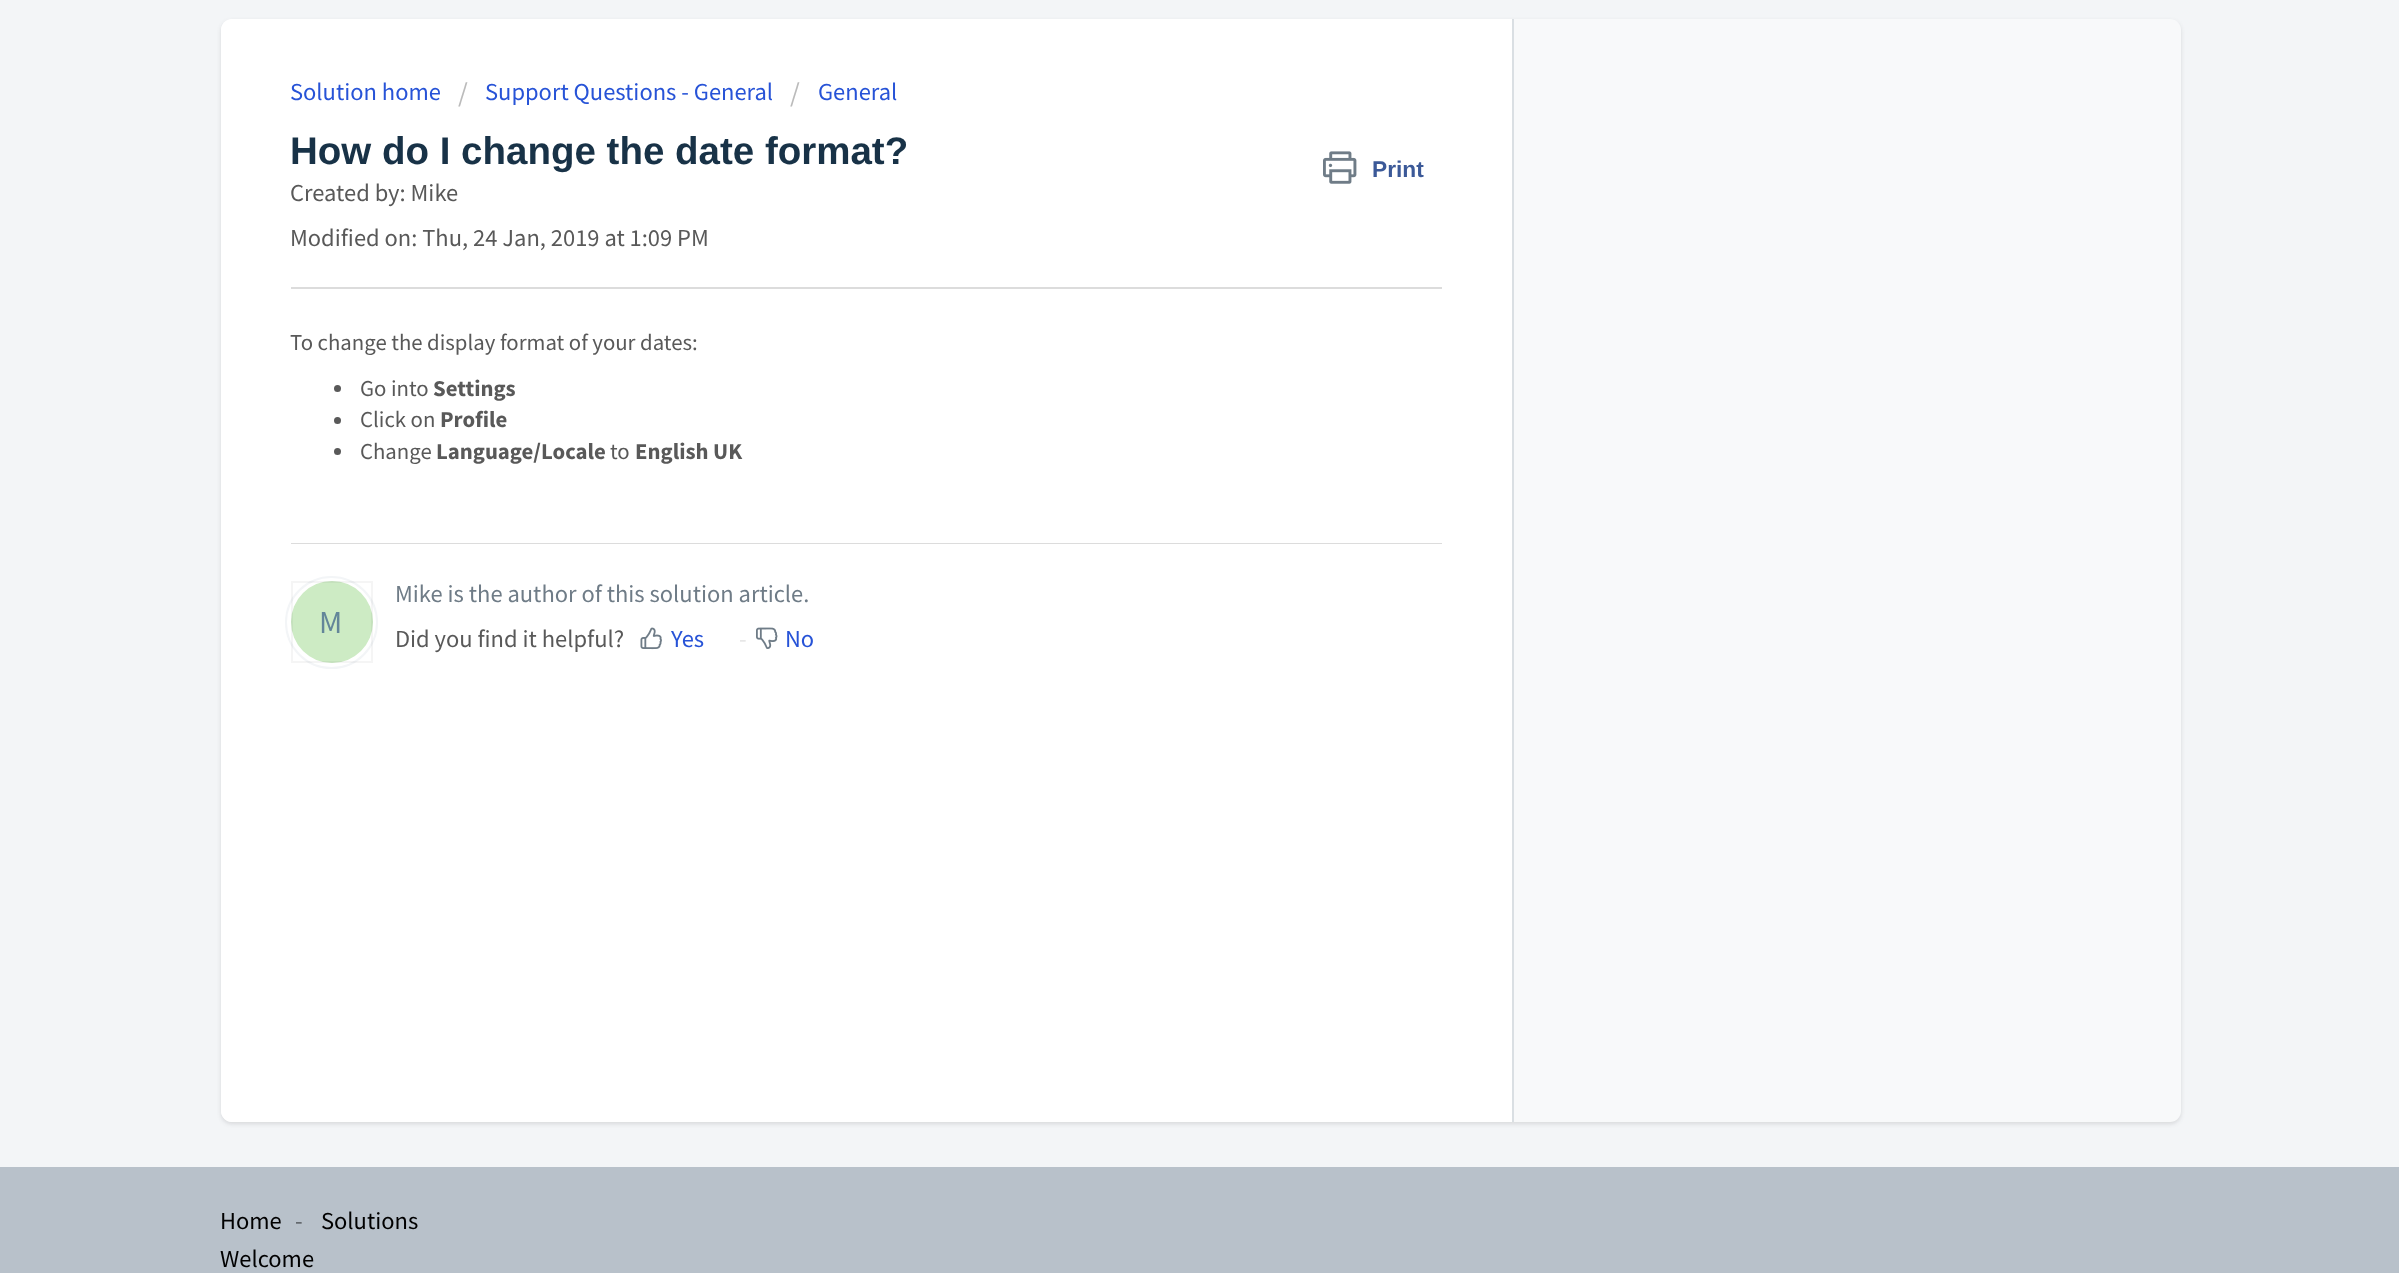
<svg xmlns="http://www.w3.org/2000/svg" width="2399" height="1273">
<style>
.a{font:24.5px Source Sans Pro;fill:#2753d7}
.b{font:28px Source Sans Pro;fill:#bbb}
.c{font:bold 38.5px Liberation Sans;fill:#183247}
.d{font:bold 22.75px Liberation Sans;fill:#3b5998}
.e{font:24.5px Source Sans Pro;fill:#595959}
.f{font:22.75px Source Sans Pro;fill:#595959}
.g{font:bold 22.75px Source Sans Pro;fill:#595959}
.h{font:24.5px Source Sans Pro;fill:#6f7c87}
.i{font:32px Source Sans Pro;fill:#638699}
.j{font:24.5px Source Sans Pro;fill:#e5e5e5}
.k{font:24.5px Source Sans Pro;fill:#000}
.l{font:24.5px Source Sans Pro;fill:#5c6165}
</style>
<rect width="100%" height="100%" fill="#f3f5f7"/>
<rect fill="#3f3f4426" filter="blur(2px)" x="221" y="21" width="1960" height="1103" rx="11"/>
<rect fill="#f8f9fa" x="221" y="19" width="1960" height="1103" rx="11"/>
<path fill="#fff" d="M232 19h1282v1103h-1282c-6 0-11-5-11-11v-1081c0-6 5-11 11-11z"/>
<path fill="#dadfe3" d="M1512 19h2v1103H1512z"/>
<image href="1.png" x="1323" y="151" width="34" height="33"/>
<path fill="#dcdcdc" d="M291 287h1151v2H291z"/>
<circle fill="#595959" cx="337.5" cy="388.5" r="3.5"/>
<circle fill="#595959" cx="337.5" cy="420.5" r="3.5"/>
<circle fill="#595959" cx="337.5" cy="451.5" r="3.5"/>
<path fill="#dcdcdc" d="M291 543h1151v1H291z"/>
<circle fill="none" stroke="#f3f5f7" stroke-width="2" cx="331.5" cy="622.5" r="45.5"/>
<circle fill="#cdebc4" cx="332" cy="622" r="41"/>
<path fill="none" stroke="#0000000a" stroke-width="2" d="M292 582h80v80H292z"/>
<image href="2.png" x="640" y="627" width="22" height="23"/>
<image href="3.png" x="756" y="627" width="22" height="22"/>
<path fill="#b8c1ca" d="M0 1167h2399v106H0z"/>
<text class="a" x="290" y="100">Solution home</text>
<text class="b" x="458" y="102">/</text>
<text class="a" x="485" y="100">Support Questions - General</text>
<text class="b" x="790" y="102">/</text>
<text class="a" x="818" y="100">General</text>
<text class="c" x="290" y="164">How do I change the date format?</text>
<text class="d" x="1372" y="177">Print</text>
<text class="e" x="290" y="201">Created by: Mike</text>
<text class="e" x="290" y="246">Modified on: Thu, 24 Jan, 2019 at 1:09 PM</text>
<text class="f" x="290" y="350">To change the display format of your dates:</text>
<text class="f" x="360" y="396">Go into</text>
<text class="g" x="433" y="396">Settings</text>
<text class="f" x="360" y="427">Click on</text>
<text class="g" x="440" y="427">Profile</text>
<text class="f" x="360" y="459">Change</text>
<text class="g" x="436" y="459">Language/Locale</text>
<text class="f" x="610" y="459">to</text>
<text class="g" x="635" y="459">English UK</text>
<text class="h" x="395" y="602">Mike is the author of this solution article.</text>
<text class="i" x="319" y="633">M</text>
<text class="e" x="395" y="647">Did you find it helpful?</text>
<text class="a" x="671" y="647">Yes</text>
<text class="j" x="739" y="647">-</text>
<text class="a" x="785" y="647">No</text>
<text class="k" x="220" y="1229">Home</text>
<text class="l" x="295" y="1229">-</text>
<text class="k" x="321" y="1229">Solutions</text>
<text class="k" x="220" y="1267">Welcome</text>
</svg>
